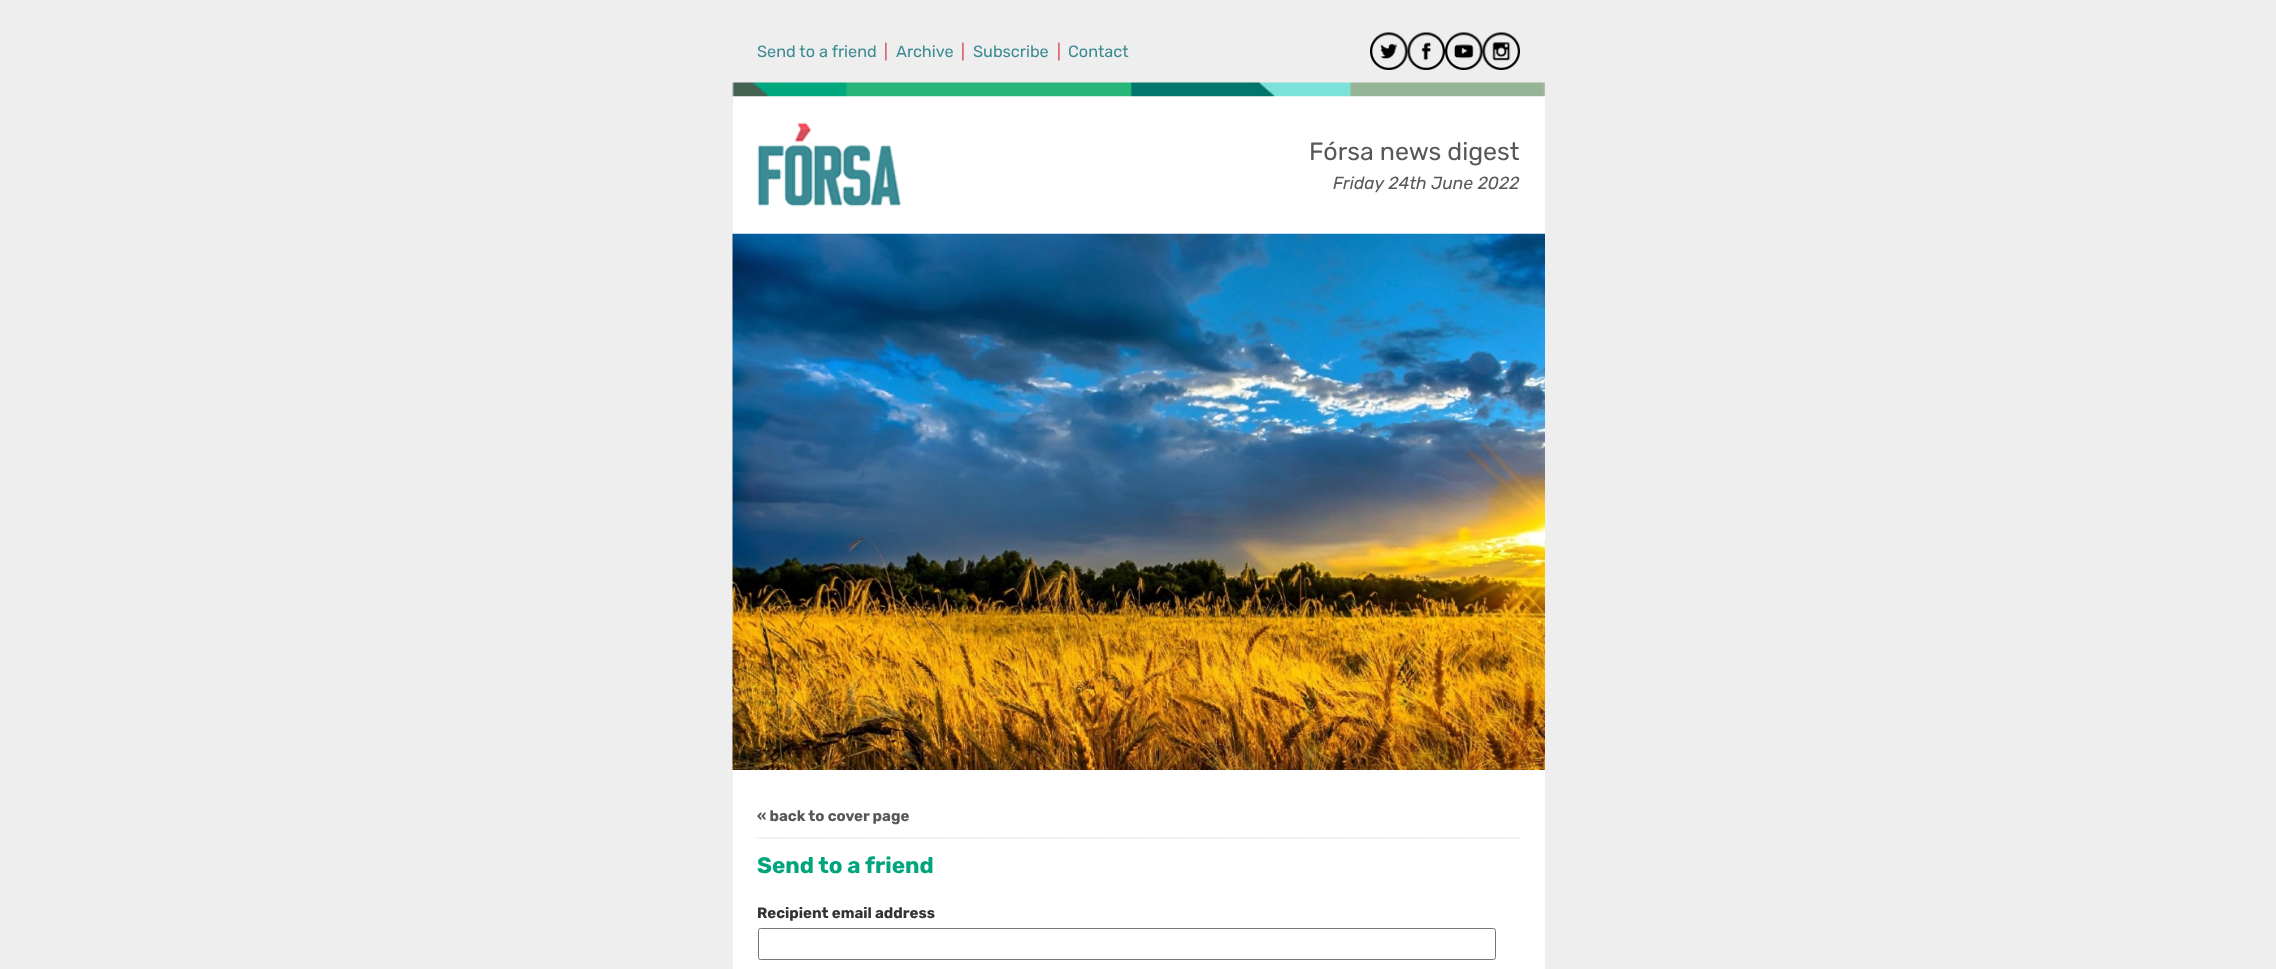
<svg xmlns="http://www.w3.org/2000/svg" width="2276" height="969">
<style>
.a{font:16.25px Rubik;fill:#3d8a93}
.b{font:16.25px Rubik;fill:#d24c59}
.c{font:25px Rubik;fill:#585859}
.d{font:italic 17.5px Rubik;fill:#585859}
.e{font:bold 15px Rubik;fill:#585859}
.f{font:bold 22.5px Rubik;fill:#00a57d}
.g{font:bold 15px Rubik;fill:#333}
</style>
<rect width="100%" height="100%" fill="#eee"/>
<path fill="#fff" d="M733 96h812v873H733z"/>
<image href="1.png" x="1370" y="32" width="38" height="38"/>
<image href="2.png" x="1407" y="32" width="38" height="38"/>
<image href="3.png" x="1445" y="32" width="38" height="38"/>
<image href="4.png" x="1482" y="32" width="38" height="38"/>
<image href="5.png" x="732" y="82" width="813" height="15"/>
<image href="6.png" x="757" y="122" width="145" height="85"/>
<image href="7.png" x="732" y="233" width="813" height="537"/>
<path fill="none" stroke="#ccc" stroke-width="1.2" stroke-dasharray="1.25 1.25" d="M757.5 838h762.5"/>
<rect fill="none" stroke="#767676" x="758.5" y="928.5" width="737" height="31" rx="2"/>
<text class="a" x="757" y="57">Send to a friend</text>
<text class="b" x="884" y="57">|</text>
<text class="a" x="896" y="57">Archive</text>
<text class="b" x="961" y="57">|</text>
<text class="a" x="973" y="57">Subscribe</text>
<text class="b" x="1057" y="57">|</text>
<text class="a" x="1068" y="57">Contact</text>
<text class="c" x="1309" y="160">Fórsa news digest</text>
<text class="d" x="1333" y="189">Friday 24th June 2022</text>
<text class="e" x="757" y="821">« back to cover page</text>
<text class="f" x="757" y="873">Send to a friend</text>
<text class="g" x="757" y="918">Recipient email address</text>
</svg>
